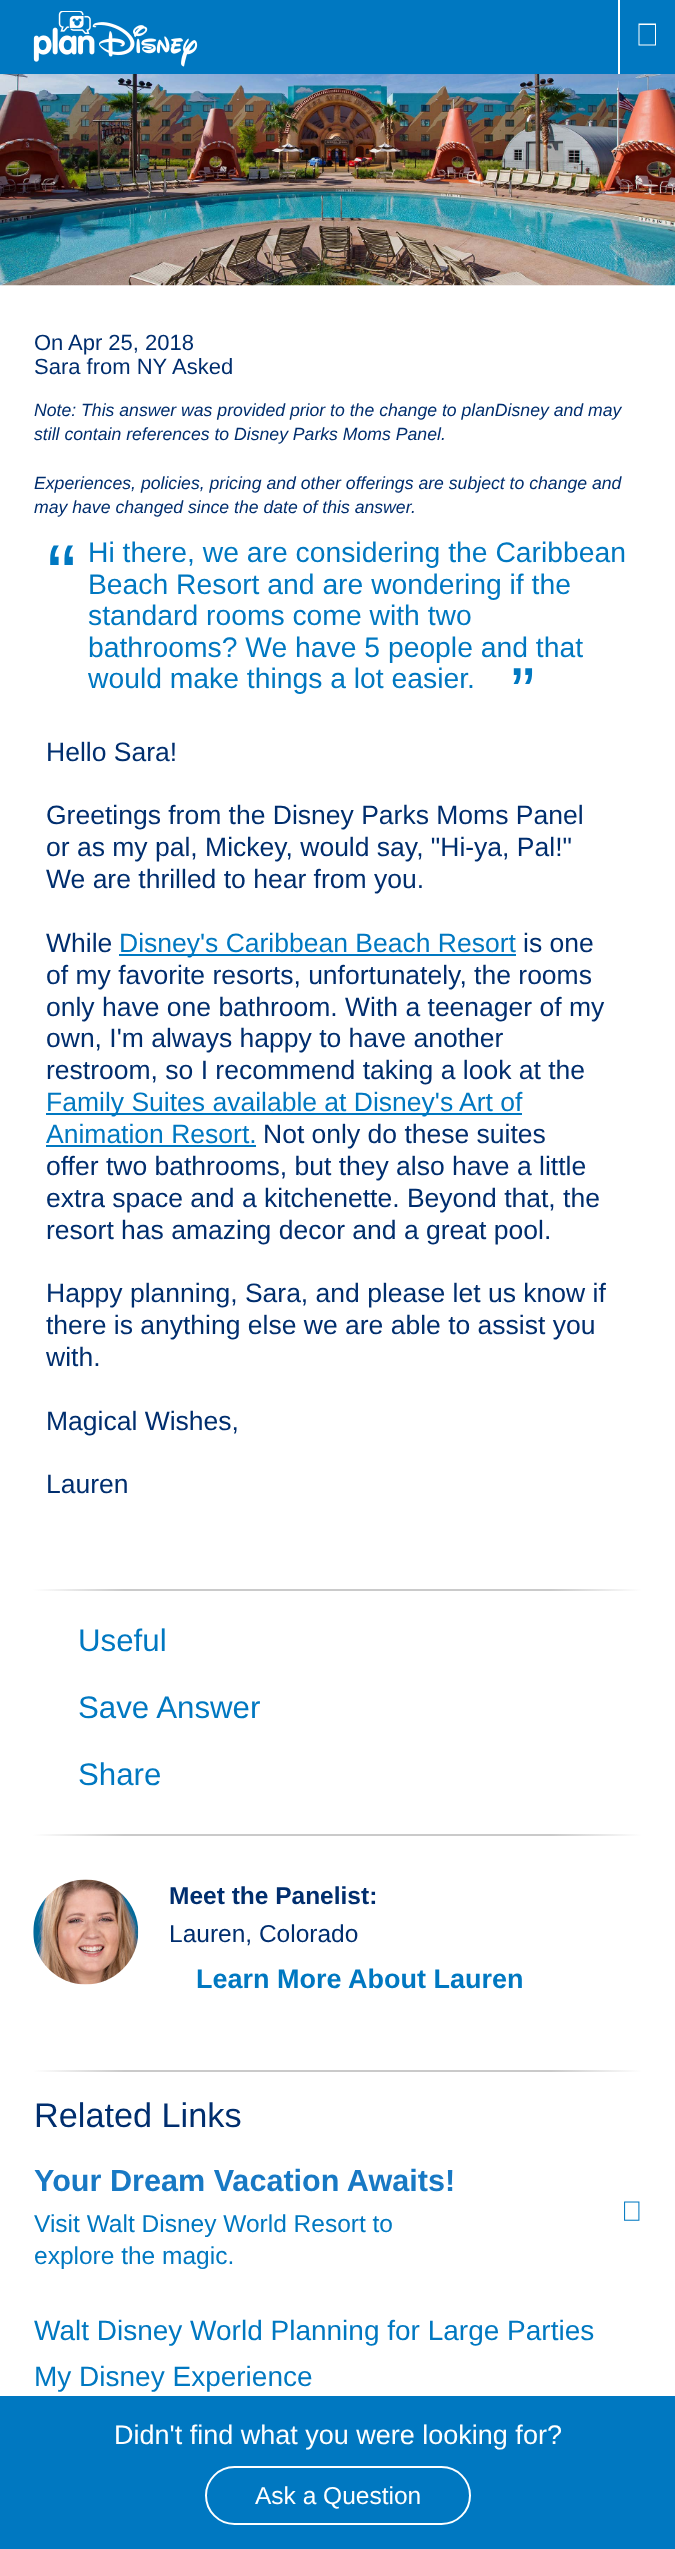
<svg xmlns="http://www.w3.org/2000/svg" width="675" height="2549">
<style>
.a{font:22px Liberation Sans;fill:#002e6e}
.b{font:italic 17.65px Liberation Sans;fill:#002e6e}
.c{font:88px Liberation Sans;fill:#0078c1}
.d{font:28.3px Liberation Sans;fill:#0078c1}
.e{font:71px Liberation Sans;fill:#0078c1}
.f{font:26.5px Liberation Sans;fill:#002e6e}
.g{font:26.5px Liberation Sans;fill:#0078c1}
.h{font:31.25px Liberation Sans;fill:#0078c1}
.i{font:bold 24.5px Liberation Sans;fill:#002e6e}
.j{font:24.5px Liberation Sans;fill:#002e6e}
.k{font:bold 27px Liberation Sans;fill:#0078c1}
.l{font:34.25px Liberation Sans;fill:#002e6e}
.m{font:bold 30.6px Liberation Sans;fill:#1879c4}
.n{font:24.5px Liberation Sans;fill:#0078c1}
.o{font:28px Liberation Sans;fill:#0078c1}
.p{font:27px Liberation Sans;fill:#fff}
.q{font:24.5px Liberation Sans;fill:#fff}
</style>
<defs>
<linearGradient id="g1" gradientUnits="userSpaceOnUse" x1="33" y1="1590" x2="642" y2="1590"><stop offset="0" stop-color="#fff"/><stop offset="0.15" stop-color="#cacaca"/><stop offset="0.85" stop-color="#cacaca"/><stop offset="1" stop-color="#fff"/></linearGradient>
<linearGradient id="g2" gradientUnits="userSpaceOnUse" x1="33" y1="1835" x2="642" y2="1835"><stop offset="0" stop-color="#fff"/><stop offset="0.15" stop-color="#cacaca"/><stop offset="0.85" stop-color="#cacaca"/><stop offset="1" stop-color="#fff"/></linearGradient>
<linearGradient id="g3" gradientUnits="userSpaceOnUse" x1="33" y1="2071" x2="642" y2="2071"><stop offset="0" stop-color="#fff"/><stop offset="0.15" stop-color="#cacaca"/><stop offset="0.85" stop-color="#cacaca"/><stop offset="1" stop-color="#fff"/></linearGradient>
</defs>
<rect width="100%" height="100%" fill="#fff"/>
<path fill="#0078c1" d="M0 0h675v74H0z"/>
<image href="1.png" x="33" y="11" width="165" height="56"/>
<path fill="#fff" d="M618 0h2v74H618z"/>
<path fill="#fff" d="M638.5 23.5h17.5v22h-17.5zm1 1.5v19.5h15.5v-19.5z"/>
<image href="2.png" x="0" y="74" width="675" height="212"/>
<path fill="#0078c1" d="M119 954h397v2H119z"/>
<path fill="#0078c1" d="M46 1113h476v2H46z"/>
<path fill="#0078c1" d="M46 1145h210v2H46z"/>
<path fill="url(#g1)" d="M33 1589h609v2H33z"/>
<path fill="url(#g2)" d="M33 1834h609v2H33z"/>
<image href="3.png" x="33" y="1879" width="106" height="106"/>
<path fill="url(#g3)" d="M33 2070h609v2H33z"/>
<image href="4.png" x="624" y="2201" width="16" height="20"/>
<path fill="#0078c1" d="M0 2396h675v153H0z"/>
<rect fill="none" stroke="#fff" stroke-width="2" x="206" y="2467" width="264" height="57" rx="28.5"/>
<text class="a" x="34" y="350">On</text>
<text class="a" x="68" y="350">Apr 25, 2018</text>
<text class="a" x="34" y="374">Sara from NY</text>
<text class="a" x="172" y="374">Asked</text>
<text class="b" x="34" y="416">Note: This answer was provided prior to the change to planDisney and may</text>
<text class="b" x="34" y="440">still contain references to Disney Parks Moms Panel.</text>
<text class="b" x="34" y="489">Experiences, policies, pricing and other offerings are subject to change and</text>
<text class="b" x="34" y="513">may have changed since the date of this answer.</text>
<text class="c" x="47" y="606">“</text>
<text class="d" x="88" y="562">Hi there, we are considering the Caribbean</text>
<text class="d" x="88" y="594">Beach Resort and are wondering if the</text>
<text class="d" x="88" y="625">standard rooms come with two</text>
<text class="d" x="88" y="657">bathrooms? We have 5 people and that</text>
<text class="d" x="88" y="688">would make things a lot easier.</text>
<text class="e" x="511" y="717">”</text>
<text class="f" x="46" y="761">Hello Sara!</text>
<text class="f" x="46" y="824">Greetings from the Disney Parks Moms Panel</text>
<text class="f" x="46" y="856">or as my pal, Mickey, would say, "Hi-ya, Pal!"</text>
<text class="f" x="46" y="888">We are thrilled to hear from you.</text>
<text class="f" x="46" y="952">While</text>
<text class="g" x="119" y="952">Disney's Caribbean Beach Resort</text>
<text class="f" x="523" y="952">is one</text>
<text class="f" x="46" y="984">of my favorite resorts, unfortunately, the rooms</text>
<text class="f" x="46" y="1016">only have one bathroom. With a teenager of my</text>
<text class="f" x="46" y="1047">own, I'm always happy to have another</text>
<text class="f" x="46" y="1079">restroom, so I recommend taking a look at the</text>
<text class="g" x="46" y="1111">Family Suites available at Disney's Art of</text>
<text class="g" x="46" y="1143">Animation Resort.</text>
<text class="f" x="263" y="1143">Not only do these suites</text>
<text class="f" x="46" y="1175">offer two bathrooms, but they also have a little</text>
<text class="f" x="46" y="1207">extra space and a kitchenette. Beyond that, the</text>
<text class="f" x="46" y="1239">resort has amazing decor and a great pool.</text>
<text class="f" x="46" y="1302">Happy planning, Sara, and please let us know if</text>
<text class="f" x="46" y="1334">there is anything else we are able to assist you</text>
<text class="f" x="46" y="1366">with.</text>
<text class="f" x="46" y="1430">Magical Wishes,</text>
<text class="f" x="46" y="1493">Lauren</text>
<text class="h" x="78" y="1651">Useful</text>
<text class="h" x="78" y="1718">Save Answer</text>
<text class="h" x="78" y="1785">Share</text>
<text class="i" x="169" y="1904">Meet the Panelist:</text>
<text class="j" x="169" y="1942">Lauren, Colorado</text>
<text class="k" x="196" y="1988">Learn More About Lauren</text>
<text class="l" x="34" y="2127">Related Links</text>
<text class="m" x="34" y="2191">Your Dream Vacation Awaits!</text>
<text class="n" x="34" y="2232">Visit Walt Disney World Resort to</text>
<text class="n" x="34" y="2264">explore the magic.</text>
<text class="o" x="34" y="2340">Walt Disney World Planning for Large Parties</text>
<text class="o" x="34" y="2386">My Disney Experience</text>
<text class="p" x="114" y="2444">Didn't find what you were looking for?</text>
<text class="q" x="255" y="2504">Ask a Question</text>
</svg>
